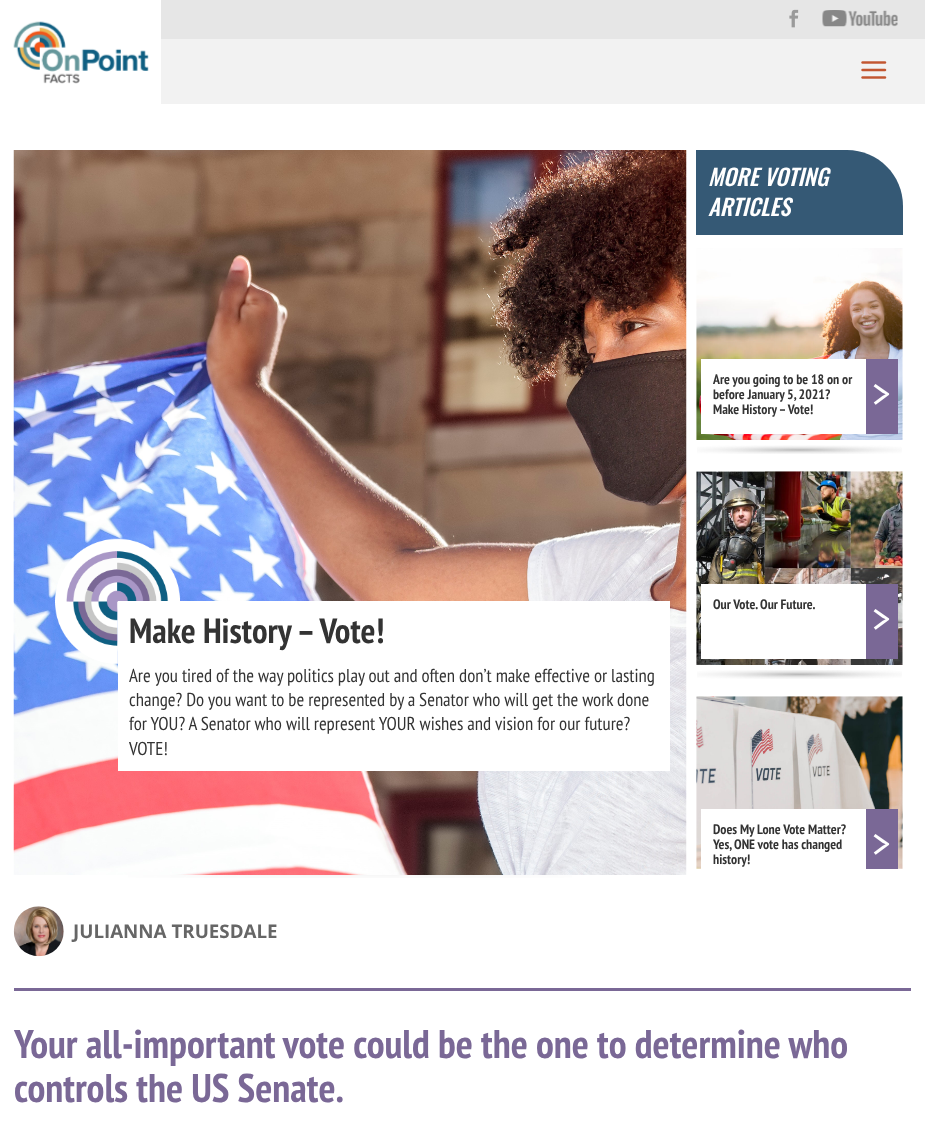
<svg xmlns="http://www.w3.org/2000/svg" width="925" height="1130">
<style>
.a{font:italic 500 22.5px Oswald;fill:#fff}
.b{font:bold 13.75px PT Sans Narrow;fill:#333}
.c{font:45px PT Sans Narrow;fill:#fff}
.d{font:bold 35px PT Sans Narrow;fill:#333}
.e{font:18.75px PT Sans Narrow;fill:#333}
.f{font:bold 18.75px Open Sans;fill:#666}
.g{font:bold 40px PT Sans Narrow;fill:#7a6896}
</style>
<rect width="100%" height="100%" fill="#fff"/>
<path fill="#e6e6e6" d="M161 0h764v39H161z"/>
<image href="1.png" x="789" y="9" width="10" height="19"/>
<image href="2.png" x="822" y="10" width="76" height="17"/>
<image href="3.png" x="13" y="21" width="136" height="63"/>
<path fill="#f2f2f2" d="M161 39h764v65H161z"/>
<image href="4.png" x="861" y="61" width="26" height="18"/>
<path fill="#355975" d="M696 150h151c31 0 56 25 56 56v29h-207z"/>
<image href="5.png" x="697" y="445" width="205" height="9"/>
<image href="6.png" x="696" y="248" width="207" height="192"/>
<path fill="#fff" d="M701 359h165v75H701z"/>
<path fill="#7a6896" d="M866 359h32v75H866z"/>
<image href="7.png" x="697" y="670" width="205" height="9"/>
<image href="8.png" x="696" y="471" width="207" height="194"/>
<path fill="#fff" d="M701 584h165v75H701z"/>
<path fill="#7a6896" d="M866 584h32v75H866z"/>
<image href="9.png" x="696" y="696" width="207" height="173"/>
<path fill="#fff" d="M701 809h165v60H701z"/>
<path fill="#7a6896" d="M866 809h32v60H866z"/>
<image href="10.png" x="128" y="875" width="444" height="3"/>
<image href="11.png" x="13" y="150" width="674" height="725"/>
<image href="12.png" x="55" y="538" width="125" height="126"/>
<path fill="#fff" d="M118 601h552v170H118z"/>
<image href="13.png" x="13" y="906" width="51" height="51"/>
<path fill="#7a6896" d="M14 988h897v3H14z"/>
<text class="a" x="708" y="186">MORE VOTING</text>
<text class="a" x="708" y="216">ARTICLES</text>
<text class="b" x="713" y="384">Are you going to be 18 on or</text>
<text class="b" x="713" y="399">before January 5, 2021?</text>
<text class="b" x="713" y="414">Make History – Vote!</text>
<text class="c" x="872" y="409">&gt;</text>
<text class="b" x="713" y="609">Our Vote. Our Future.</text>
<text class="c" x="872" y="634">&gt;</text>
<text class="b" x="713" y="834">Does My Lone Vote Matter?</text>
<text class="b" x="713" y="849">Yes, ONE vote has changed</text>
<text class="b" x="713" y="864">history!</text>
<text class="c" x="872" y="859">&gt;</text>
<text class="d" x="129" y="643">Make History – Vote!</text>
<text class="e" x="129" y="682">Are you tired of the way politics play out and often don’t make effective or lasting</text>
<text class="e" x="129" y="706">change? Do you want to be represented by a Senator who will get the work done</text>
<text class="e" x="129" y="730">for YOU? A Senator who will represent YOUR wishes and vision for our future?</text>
<text class="e" x="129" y="755">VOTE!</text>
<text class="f" x="73" y="938">JULIANNA TRUESDALE</text>
<text class="g" x="14" y="1058">Your all-important vote could be the one to determine who</text>
<text class="g" x="14" y="1102">controls the US Senate.</text>
</svg>
